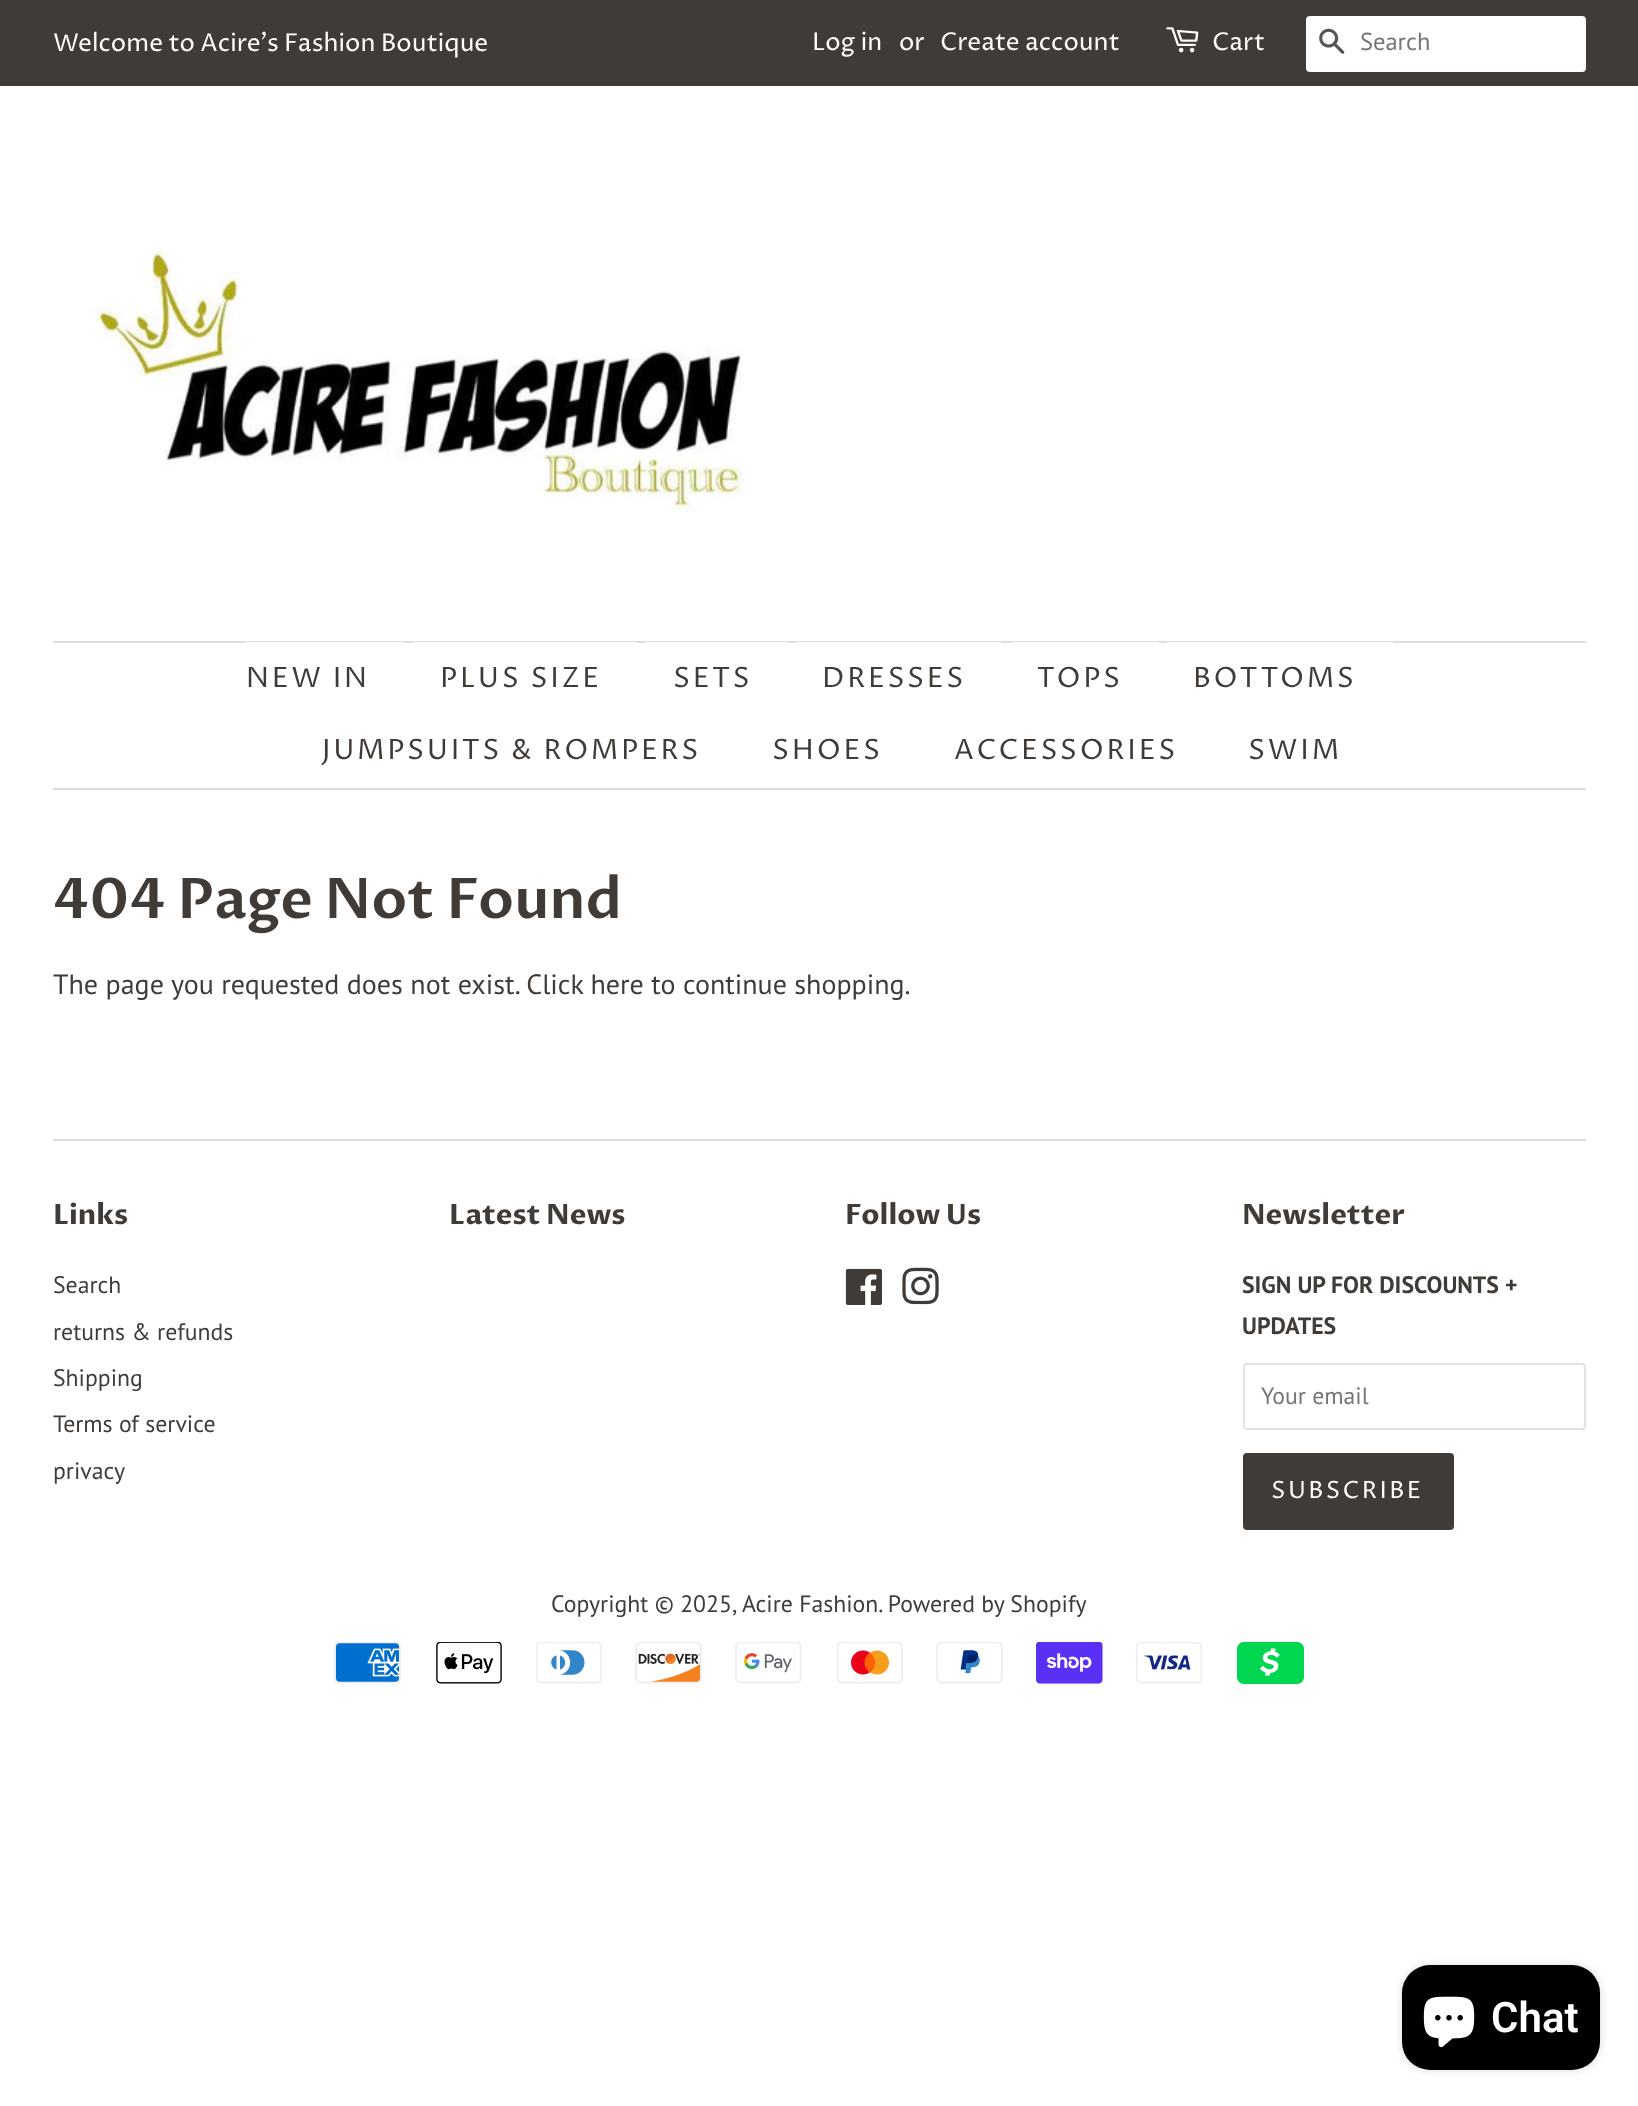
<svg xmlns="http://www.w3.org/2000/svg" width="1638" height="2106">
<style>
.a{font:24.5px Proza Libre;fill:#fff}
.b{font:24.5px PT Sans;fill:#757575}
.c{font:28px Proza Libre;letter-spacing:2.75px;fill:#403b37}
.d{font:600 56px Proza Libre;fill:#403b37}
.e{font:28px PT Sans;fill:#403b37}
.f{font:bold 28px Proza Libre;fill:#403b37}
.g{font:23.75px PT Sans;fill:#403b37}
.h{font:bold 23.75px PT Sans;fill:#403b37}
.i{font:23.75px PT Sans;fill:#757575}
.j{font:23.75px Proza Libre;letter-spacing:2.4px;fill:#fff}
.k{font:600 42px Roboto;fill:#fff}
</style>
<rect width="100%" height="100%" fill="#fff"/>
<path fill="#403b37" d="M0 0h1638v86H0z"/>
<image href="1.png" x="1166" y="27" width="33" height="26"/>
<rect fill="#fff" x="1306" y="16" width="280" height="56" rx="4"/>
<image href="2.png" x="1319" y="28" width="26" height="26"/>
<image href="3.png" x="88" y="244" width="655" height="268"/>
<path fill="#ddd" d="M53 641h1533v2H53z"/>
<path fill="#ddd" d="M53 788h1533v2H53z"/>
<path fill="#fff" d="M245 642h159v1H245z"/>
<path fill="#fff" d="M413 642h224v1H413z"/>
<path fill="#fff" d="M646 642h142v1H646z"/>
<path fill="#fff" d="M796 642h205v1H796z"/>
<path fill="#fff" d="M1012 642h147v1H1012z"/>
<path fill="#fff" d="M1167 642h226v1H1167z"/>
<path fill="#ddd" d="M53 1139h1533v2H53z"/>
<image href="4.png" x="845" y="1268" width="37" height="37"/>
<image href="5.png" x="902" y="1267" width="37" height="38"/>
<rect fill="none" stroke="#e2e2e1" stroke-width="2" x="1244" y="1364" width="341" height="65" rx="3"/>
<rect fill="#403b37" x="1243" y="1453" width="211" height="77" rx="4"/>
<image href="6.png" x="334" y="1642" width="67" height="42"/>
<image href="7.png" x="436" y="1642" width="66" height="42"/>
<image href="8.png" x="536" y="1642" width="66" height="42"/>
<image href="9.png" x="635" y="1642" width="67" height="42"/>
<image href="10.png" x="735" y="1642" width="67" height="42"/>
<image href="11.png" x="837" y="1642" width="66" height="42"/>
<image href="12.png" x="936" y="1642" width="67" height="42"/>
<image href="13.png" x="1036" y="1642" width="67" height="42"/>
<image href="14.png" x="1136" y="1642" width="66" height="42"/>
<image href="15.png" x="1237" y="1642" width="67" height="42"/>
<rect fill="#00000026" filter="blur(4.5px)" x="1402" y="1965" width="198" height="105" rx="28"/>
<rect fill="#000" x="1402" y="1965" width="198" height="105" rx="28"/>
<image href="16.png" x="1423" y="1996" width="52" height="52"/>
<text class="a" x="53" y="51">Welcome to Acire's Fashion Boutique</text>
<text class="a" x="812" y="50">Log in</text>
<text class="a" x="899" y="50">or</text>
<text class="a" x="940" y="50">Create account</text>
<text class="a" x="1212" y="50">Cart</text>
<text class="b" x="1360" y="50">Search</text>
<text class="c" x="246" y="687">NEW IN</text>
<text class="c" x="440" y="687">PLUS SIZE</text>
<text class="c" x="673" y="687">SETS</text>
<text class="c" x="822" y="687">DRESSES</text>
<text class="c" x="1037" y="687">TOPS</text>
<text class="c" x="1193" y="687">BOTTOMS</text>
<text class="c" x="322" y="759">JUMPSUITS &amp; ROMPERS</text>
<text class="c" x="772" y="759">SHOES</text>
<text class="c" x="954" y="759">ACCESSORIES</text>
<text class="c" x="1248" y="759">SWIM</text>
<text class="d" x="53" y="918">404 Page Not Found</text>
<text class="e" x="53" y="994">The page you requested does not exist. Click here to continue shopping.</text>
<text class="f" x="53" y="1224">Links</text>
<text class="g" x="53" y="1293">Search</text>
<text class="g" x="53" y="1340">returns &amp; refunds</text>
<text class="g" x="53" y="1386">Shipping</text>
<text class="g" x="53" y="1432">Terms of service</text>
<text class="g" x="53" y="1479">privacy</text>
<text class="f" x="449" y="1224">Latest News</text>
<text class="f" x="845" y="1224">Follow Us</text>
<text class="f" x="1242" y="1224">Newsletter</text>
<text class="h" x="1242" y="1293">SIGN UP FOR DISCOUNTS +</text>
<text class="h" x="1242" y="1334">UPDATES</text>
<text class="i" x="1261" y="1404">Your email</text>
<text class="j" x="1271" y="1498">SUBSCRIBE</text>
<text class="g" x="551" y="1612">Copyright © 2025,</text>
<text class="g" x="742" y="1612">Acire Fashion. Powered by Shopify</text>
<text class="k" x="1491" y="2032">Chat</text>
</svg>
